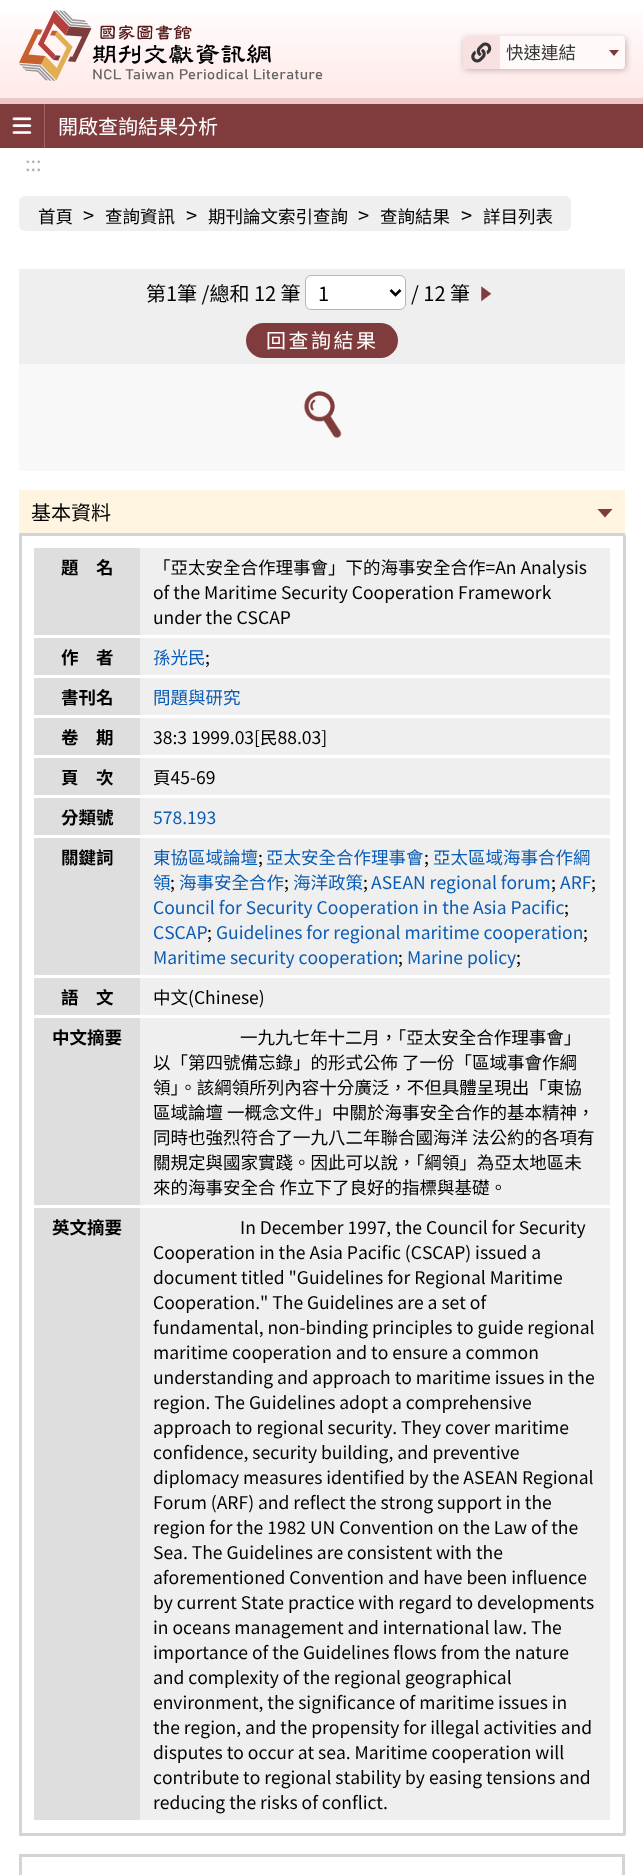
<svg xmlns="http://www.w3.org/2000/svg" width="643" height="1875">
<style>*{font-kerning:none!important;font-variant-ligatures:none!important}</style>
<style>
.a{font:17.5px Noto Sans TC;fill:#353535}
.b{font:20px Noto Sans TC;fill:#fff}
.c{font:20px Noto Sans TC;fill:#b1b4b6}
.d{font:17.5px Noto Sans TC;fill:#000}
.e{font:20px Noto Sans TC;fill:#000}
.f{font:20px Noto Sans TC;letter-spacing:2.5px;fill:#fff}
.g{font:bold 17.5px Noto Sans TC;fill:#000}
.h{font:17.5px Noto Sans TC;fill:#0b5cb4}
</style>
<defs>
<linearGradient id="g1" gradientUnits="userSpaceOnUse" x1="322" y1="0" x2="322" y2="98"><stop offset="0" stop-color="#fff"/><stop offset="1" stop-color="#ffe8e8"/></linearGradient>
</defs>
<rect width="100%" height="100%" fill="#fff"/>
<path fill="url(#g1)" d="M0 11h643v87H0z"/>
<image href="1.png" x="19" y="10" width="304" height="71"/>
<rect fill="#c3acac" filter="blur(3px)" x="464" y="38" width="162" height="32" rx="4"/>
<rect fill="#fff9f9" x="463" y="36" width="162" height="33" rx="4"/>
<path fill="#f8e1e1" d="M467 36h33v33h-33c-2 0-4-2-4-4v-25c0-2 2-4 4-4z"/>
<image href="2.png" x="471" y="42" width="21" height="21"/>
<path fill="#7d3b3c" d="M609 50h10l-5 6z"/>
<path fill="#803c3d" d="M0 104h643v44H0z"/>
<path fill="#ebc7c7" d="M0 98h643v6H0z"/>
<path fill="#a06465" d="M44 104h1v44H44z"/>
<image href="3.png" x="12" y="117" width="20" height="17"/>
<rect fill="#efefef" x="19" y="196" width="552" height="35" rx="6"/>
<path fill="#efefef" d="M19 269h606v95H19z"/>
<rect fill="#fff" stroke="#b6b6b6" x="305.5" y="275.5" width="100" height="34" rx="5.5"/>
<path fill="none" stroke="#000" stroke-width="2.5" d="M390.5 290l5 5l5-5"/>
<image href="4.png" x="481" y="286" width="11" height="16"/>
<rect fill="#803c3d" x="246" y="323" width="152" height="35" rx="17.5"/>
<path fill="#f8f8f8" d="M19 364h606v107H19z"/>
<image href="5.png" x="303" y="391" width="39" height="47"/>
<path fill="#fff4e0" d="M19 490h606v43H19z"/>
<path fill="#d4d4d4" d="M623 535h3v1300H623z"/>
<path fill="#d4d4d4" d="M19 1833h606v3H19z"/>
<path fill="#d4d4d4" d="M19 535h3v1300H19z"/>
<path fill="#d4d4d4" d="M19 533h606v3H19z"/>
<path fill="#7d3b3c" d="M597.5 509h15l-7.5 8.5z"/>
<path fill="#efefef" d="M140 548h470v1272H140z"/>
<path fill="#dedede" d="M34 548h106v87H34z"/>
<path fill="#dedede" d="M34 638h106v37H34z"/>
<path fill="#fff" d="M140 635h470v3H140z"/>
<path fill="#dedede" d="M34 678h106v37H34z"/>
<path fill="#fff" d="M140 675h470v3H140z"/>
<path fill="#dedede" d="M34 718h106v37H34z"/>
<path fill="#fff" d="M140 715h470v3H140z"/>
<path fill="#dedede" d="M34 758h106v37H34z"/>
<path fill="#fff" d="M140 755h470v3H140z"/>
<path fill="#dedede" d="M34 798h106v37H34z"/>
<path fill="#fff" d="M140 795h470v3H140z"/>
<path fill="#dedede" d="M34 838h106v137H34z"/>
<path fill="#fff" d="M140 835h470v3H140z"/>
<path fill="#dedede" d="M34 978h106v37H34z"/>
<path fill="#fff" d="M140 975h470v3H140z"/>
<path fill="#dedede" d="M34 1018h106v187H34z"/>
<path fill="#fff" d="M140 1015h470v3H140z"/>
<path fill="#dedede" d="M34 1208h106v612H34z"/>
<path fill="#fff" d="M140 1205h470v3H140z"/>
<path fill="none" stroke="#d4d4d4" stroke-width="3" d="M20.5 1855.5h603v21H20.5z"/>
<text class="a" x="506" y="59">快速連結</text>
<text class="b" x="58" y="134">開啟查詢結果分析</text>
<text class="c" x="25" y="171">:::</text>
<text class="d" x="38" y="223">首頁</text>
<text class="e" x="83" y="223">&gt;</text>
<text class="d" x="105" y="223">查詢資訊</text>
<text class="e" x="186" y="223">&gt;</text>
<text class="d" x="208" y="223">期刊論文索引查詢</text>
<text class="e" x="358" y="223">&gt;</text>
<text class="d" x="380" y="223">查詢結果</text>
<text class="e" x="461" y="223">&gt;</text>
<text class="d" x="483" y="223">詳目列表</text>
<text class="e" x="146" y="301">第1筆 /總和 12 筆</text>
<text class="e" x="318" y="301">1</text>
<text class="e" x="411" y="301">/ 12 筆</text>
<text class="f" x="266" y="348">回查詢結果</text>
<text class="e" x="31" y="520">基本資料</text>
<text class="g" x="61" y="574">題　名</text>
<text class="d" x="153" y="574">「亞太安全合作理事會」下的海事安全合作=An Analysis</text>
<text class="d" x="153" y="599">of the Maritime Security Cooperation Framework</text>
<text class="d" x="153" y="624">under the CSCAP</text>
<text class="g" x="61" y="664">作　者</text>
<text class="h" x="153" y="664">孫光民</text>
<text class="d" x="205" y="664">;</text>
<text class="g" x="61" y="704">書刊名</text>
<text class="h" x="153" y="704">問題與研究</text>
<text class="g" x="61" y="744">卷　期</text>
<text class="d" x="153" y="744">38:3 1999.03[民88.03]</text>
<text class="g" x="61" y="784">頁　次</text>
<text class="d" x="153" y="784">頁45-69</text>
<text class="g" x="61" y="824">分類號</text>
<text class="h" x="153" y="824">578.193</text>
<text class="g" x="61" y="864">關鍵詞</text>
<text class="h" x="153" y="864">東協區域論壇</text>
<text class="d" x="258" y="864">;</text>
<text class="h" x="266" y="864">亞太安全合作理事會</text>
<text class="d" x="424" y="864">;</text>
<text class="h" x="433" y="864">亞太區域海事合作綱</text>
<text class="h" x="153" y="889">領</text>
<text class="d" x="170" y="889">;</text>
<text class="h" x="179" y="889">海事安全合作</text>
<text class="d" x="284" y="889">;</text>
<text class="h" x="293" y="889">海洋政策</text>
<text class="d" x="363" y="889">;</text>
<text class="h" x="371" y="889">ASEAN regional forum</text>
<text class="d" x="551" y="889">;</text>
<text class="h" x="560" y="889">ARF</text>
<text class="d" x="591" y="889">;</text>
<text class="h" x="153" y="914">Council for Security Cooperation in the Asia Pacific</text>
<text class="d" x="564" y="914">;</text>
<text class="h" x="153" y="939">CSCAP</text>
<text class="d" x="207" y="939">;</text>
<text class="h" x="216" y="939">Guidelines for regional maritime cooperation</text>
<text class="d" x="583" y="939">;</text>
<text class="h" x="153" y="964">Maritime security cooperation</text>
<text class="d" x="398" y="964">;</text>
<text class="h" x="407" y="964">Marine policy</text>
<text class="d" x="516" y="964">;</text>
<text class="g" x="61" y="1004">語　文</text>
<text class="d" x="153" y="1004">中文(Chinese)</text>
<text class="g" x="52" y="1044">中文摘要</text>
<text class="d" x="240" y="1044">一九九七年十二月，「亞太安全合作理事會」</text>
<text class="d" x="153" y="1069">以「第四號備忘錄」的形式公佈 了一份「區域事會作綱</text>
<text class="d" x="153" y="1094">領」。該綱領所列內容十分廣泛，不但具體呈現出「東協</text>
<text class="d" x="153" y="1119">區域論壇 一概念文件」中關於海事安全合作的基本精神，</text>
<text class="d" x="153" y="1144">同時也強烈符合了一九八二年聯合國海洋 法公約的各項有</text>
<text class="d" x="153" y="1169">關規定與國家實踐。因此可以說，「綱領」為亞太地區未</text>
<text class="d" x="153" y="1194">來的海事安全合 作立下了良好的指標與基礎。</text>
<text class="g" x="52" y="1234">英文摘要</text>
<text class="d" x="240" y="1234">In December 1997, the Council for Security</text>
<text class="d" x="153" y="1259">Cooperation in the Asia Pacific (CSCAP) issued a</text>
<text class="d" x="153" y="1284">document titled "Guidelines for Regional Maritime</text>
<text class="d" x="153" y="1309">Cooperation." The Guidelines are a set of</text>
<text class="d" x="153" y="1334">fundamental, non-binding principles to guide regional</text>
<text class="d" x="153" y="1359">maritime cooperation and to ensure a common</text>
<text class="d" x="153" y="1384">understanding and approach to maritime issues in the</text>
<text class="d" x="153" y="1409">region. The Guidelines adopt a comprehensive</text>
<text class="d" x="153" y="1434">approach to regional security. They cover maritime</text>
<text class="d" x="153" y="1459">confidence, security building, and preventive</text>
<text class="d" x="153" y="1484">diplomacy measures identified by the ASEAN Regional</text>
<text class="d" x="153" y="1509">Forum (ARF) and reflect the strong support in the</text>
<text class="d" x="153" y="1534">region for the 1982 UN Convention on the Law of the</text>
<text class="d" x="153" y="1559">Sea. The Guidelines are consistent with the</text>
<text class="d" x="153" y="1584">aforementioned Convention and have been influence</text>
<text class="d" x="153" y="1609">by current State practice with regard</text>
<text class="d" x="456" y="1609">to developments</text>
<text class="d" x="153" y="1634">in oceans management and international law. The</text>
<text class="d" x="153" y="1659">importance of the Guidelines flows from the nature</text>
<text class="d" x="153" y="1684">and complexity of the regional geographical</text>
<text class="d" x="153" y="1709">environment, the significance of maritime issues in</text>
<text class="d" x="153" y="1734">the region, and the propensity for illegal activities and</text>
<text class="d" x="153" y="1759">disputes to occur at sea. Maritime cooperation will</text>
<text class="d" x="153" y="1784">contribute to regional stability by easing tensions and</text>
<text class="d" x="153" y="1809">reducing the risks of conflict.</text>
</svg>
